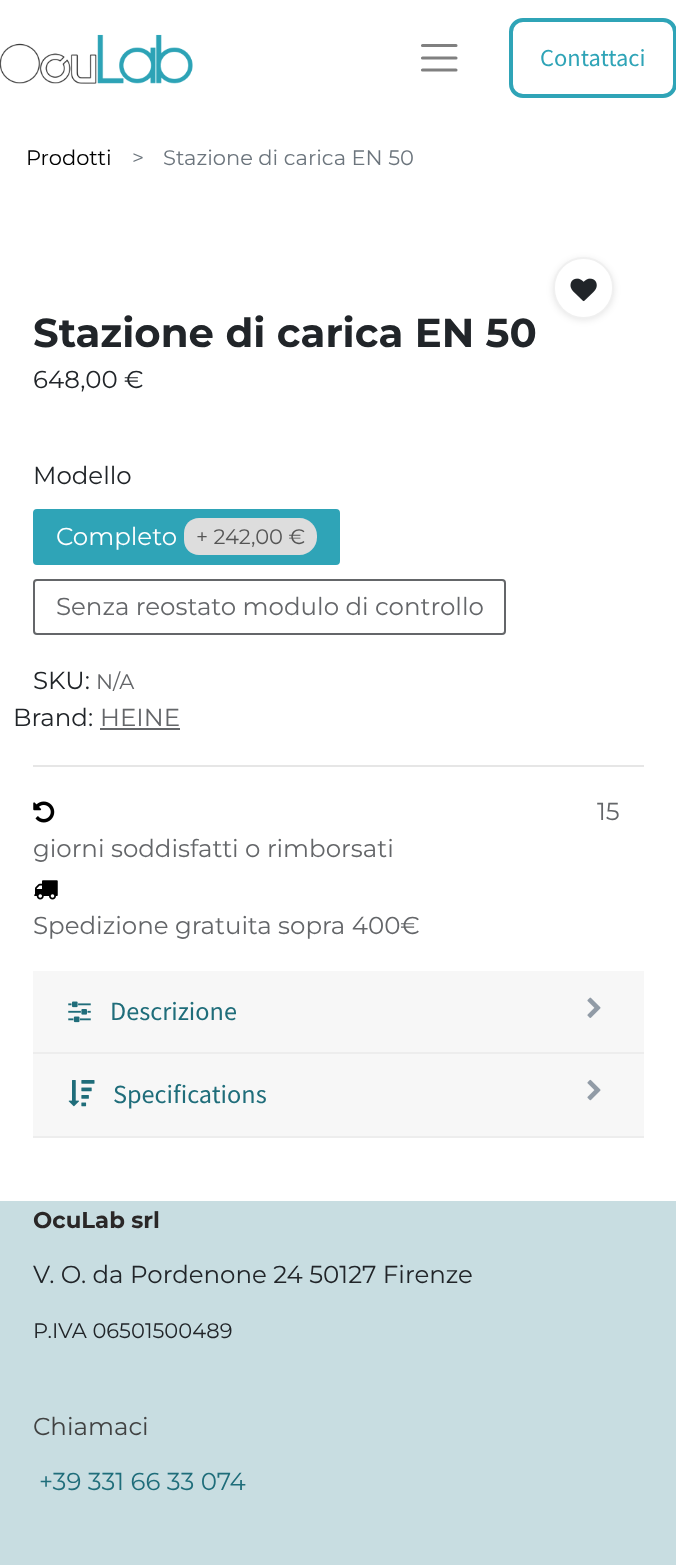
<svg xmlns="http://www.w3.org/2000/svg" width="676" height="1565">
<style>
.a{font:24.5px Source Sans Pro;fill:#2fa4b7}
.b{font:21px Montserrat;fill:#000}
.c{font:21px Montserrat;fill:#6c757d}
.d{font:bold 40.25px Montserrat;fill:#212529}
.e{font:24.5px Montserrat;fill:#212529}
.f{font:24.5px Montserrat;fill:#fff}
.g{font:21px Montserrat;fill:#555}
.h{font:24.5px Montserrat;fill:#646669}
.i{font:21px Montserrat;fill:#646669}
.j{font:26.25px Source Sans Pro;fill:#1f6d7a}
.k{font:bold 22.75px Montserrat;fill:#2a2727}
.l{font:21px Montserrat;fill:#212529}
.m{font:24.5px Montserrat;fill:#414242}
.n{font:24.5px Montserrat;fill:#1f6d7a}
</style>
<rect width="100%" height="100%" fill="#fff"/>
<image href="1.png" x="0" y="34" width="193" height="50"/>
<path fill="none" stroke="#808080" stroke-width="3.1" stroke-linecap="round" d="M422.5 45.5h33.5m-33.5 12.5h33.5m-33.5 12h33.5"/>
<rect fill="none" stroke="#2fa4b7" stroke-width="4" x="511" y="20" width="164" height="76" rx="12"/>
<rect fill="#0000001a" filter="blur(3.5px)" x="553" y="259" width="61" height="61" rx="30.5"/>
<rect fill="#fff" stroke="#f0f0f0" stroke-width="2" x="554" y="258" width="59" height="60" rx="29.5"/>
<image href="2.png" x="570" y="278" width="27" height="24"/>
<rect fill="#2fa4b7" stroke="#2fa4b7" stroke-width="2" x="34" y="510" width="305" height="54" rx="3"/>
<path fill="#ddd" d="M199 518h15v37h-15c-8.5 0-15-6.5-15-15v-7c0-8.5 6.5-15 15-15z"/>
<path fill="#ddd" d="M214 518h68v37H214z"/>
<path fill="#ddd" d="M282 518h17.5c9.5 0 17.5 8 17.5 17.5v2c0 9.5-8 17.5-17.5 17.5h-17.5z"/>
<rect fill="none" stroke="#646669" stroke-width="2" x="34" y="580" width="471" height="54" rx="3"/>
<path fill="#646669" d="M100 728h80v2H100z"/>
<path fill="#e6e6e6" d="M33 765h611v2H33z"/>
<image href="3.png" x="33" y="801" width="22" height="22"/>
<image href="4.png" x="34" y="880" width="24" height="20"/>
<path fill="#f7f7f7" d="M33 971h611v81H33z"/>
<path fill="#ededed" d="M33 1052h611v2H33z"/>
<image href="5.png" x="68" y="1001" width="23" height="22"/>
<image href="6.png" x="587" y="997" width="14" height="21"/>
<path fill="#f7f7f7" d="M33 1054h611v82H33z"/>
<path fill="#ededed" d="M33 1136h611v2H33z"/>
<image href="7.png" x="68" y="1080" width="27" height="27"/>
<image href="8.png" x="587" y="1079" width="14" height="22"/>
<path fill="#c8dde1" d="M0 1201h676v364H0z"/>
<text class="a" x="540" y="66">Contattaci</text>
<text class="b" x="26" y="165">Prodotti</text>
<text class="c" x="132" y="165">&gt;</text>
<text class="c" x="163" y="165">Stazione di carica EN 50</text>
<text class="d" x="33" y="347">Stazione di carica EN 50</text>
<text class="e" x="33" y="388">648,00 €</text>
<text class="e" x="33" y="484">Modello</text>
<text class="f" x="56" y="545">Completo</text>
<text class="g" x="196" y="544">+ 242,00 €</text>
<text class="h" x="56" y="615">Senza reostato modulo di controllo</text>
<text class="e" x="33" y="689">SKU:</text>
<text class="i" x="96" y="689">N/A</text>
<text class="e" x="13" y="726">Brand:</text>
<text class="h" x="100" y="726">HEINE</text>
<text class="h" x="597" y="820">15</text>
<text class="h" x="33" y="857">giorni soddisfatti o rimborsati</text>
<text class="h" x="33" y="934">Spedizione gratuita sopra 400€</text>
<text class="j" x="110" y="1020">Descrizione</text>
<text class="j" x="113" y="1103">Specifications</text>
<text class="k" x="33" y="1228">OcuLab srl</text>
<text class="e" x="33" y="1283">V. O. da Pordenone 24 50127 Firenze</text>
<text class="l" x="33" y="1338">P.IVA 06501500489</text>
<text class="m" x="33" y="1435">Chiamaci</text>
<text class="n" x="39" y="1490">+39 331 66 33 074</text>
</svg>
